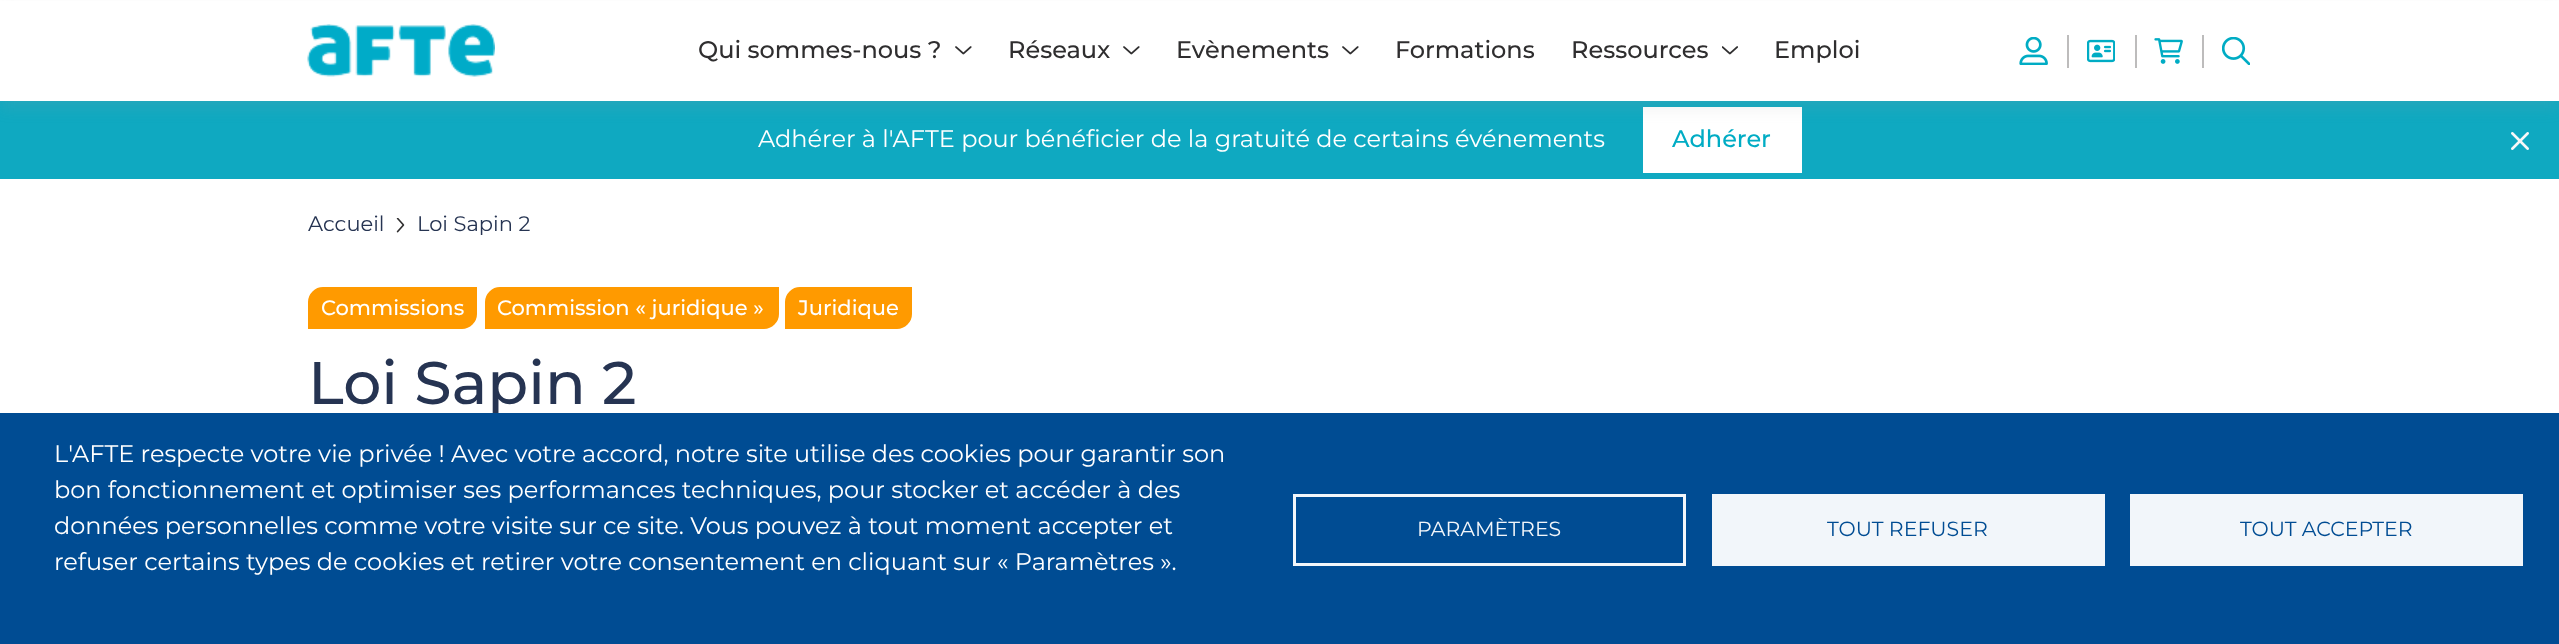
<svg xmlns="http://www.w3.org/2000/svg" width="2559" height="644">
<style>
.a{font:500 24px Montserrat;fill:#2f2e2f}
.b{font:24px Montserrat;fill:#fff}
.c{font:500 24px Montserrat;fill:#00acc4}
.d{font:21px Montserrat;fill:#263452}
.e{font:500 21px Montserrat;fill:#fff}
.f{font:500 60px Montserrat;fill:#263452}
.g{font:20.5px Montserrat;fill:#004c93}
.h{font:20.5px Montserrat;fill:#f2f6fa}
</style>
<rect width="100%" height="100%" fill="#fff"/>
<path fill="#0fa9c1" d="M0 101h2559v78H0z"/>
<path fill="#fff" d="M1643 107h159v66H1643z"/>
<path fill="#9d9d9d26" filter="blur(7.5px)" d="M0 8h2559v100H0z"/>
<path fill="#fff" d="M0 1h2559v100H0z"/>
<image href="1.png" x="955" y="46" width="17" height="9"/>
<image href="1.png" x="1123" y="46" width="17" height="9"/>
<image href="1.png" x="1342" y="46" width="17" height="9"/>
<image href="2.png" x="1722" y="46" width="16" height="9"/>
<path fill="#bdbcbc" d="M2067 35h2v33H2067z"/>
<image href="3.png" x="2019" y="37" width="29" height="28"/>
<path fill="#bdbcbc" d="M2135 35h2v33H2135z"/>
<image href="4.png" x="2087" y="39" width="28" height="24"/>
<path fill="#bdbcbc" d="M2202 35h2v33H2202z"/>
<image href="5.png" x="2154" y="38" width="29" height="26"/>
<image href="6.png" x="2222" y="37" width="28" height="28"/>
<image href="7.png" x="307" y="24" width="188" height="53"/>
<image href="8.png" x="2511" y="132" width="18" height="18"/>
<image href="9.png" x="396" y="218" width="9" height="15"/>
<path fill="#ff9a00" stroke="#ff9a00" stroke-width="2" d="M323 288h153v26c0 7.5-6.5 14-14 14h-153v-26c0-7.5 6.5-14 14-14z"/>
<path fill="#ff9a00" stroke="#ff9a00" stroke-width="2" d="M500 288h278v26c0 7.5-6.5 14-14 14h-278v-26c0-7.5 6.5-14 14-14z"/>
<path fill="#ff9a00" stroke="#ff9a00" stroke-width="2" d="M800 288h111v26c0 7.5-6.5 14-14 14h-111v-26c0-7.5 6.5-14 14-14z"/>
<text class="a" x="698" y="58">Qui sommes-nous ?</text>
<text class="a" x="1008" y="58">Réseaux</text>
<text class="a" x="1176" y="58">Evènements</text>
<text class="a" x="1395" y="58">Formations</text>
<text class="a" x="1571" y="58">Ressources</text>
<text class="a" x="1774" y="58">Emploi</text>
<text class="b" x="758" y="147">Adhérer à l'AFTE pour bénéficier de la gratuité de certains événements</text>
<text class="c" x="1672" y="147">Adhérer</text>
<text class="d" x="308" y="231">Accueil</text>
<text class="d" x="417" y="231">Loi Sapin 2</text>
<text class="e" x="321" y="315">Commissions</text>
<text class="e" x="497" y="315">Commission « juridique »</text>
<text class="e" x="798" y="315">Juridique</text>
<text class="f" x="308" y="404">Loi Sapin 2</text>
<path fill="#004c93" d="M0 413h2559v231H0z"/>
<path fill="#f2f6fa" d="M2130 494h393v72H2130z"/>
<text class="g" x="2240" y="536">TOUT ACCEPTER</text>
<path fill="#f2f6fa" d="M1712 494h393v72H1712z"/>
<text class="g" x="1827" y="536">TOUT REFUSER</text>
<path fill="none" stroke="#f2f6fa" stroke-width="3" d="M1294.5 495.5h390v69H1294.5z"/>
<text class="h" x="1417" y="536">PARAMÈTRES</text>
<text class="b" x="54" y="570">refuser certains types de cookies et retirer votre consentement en cliquant sur « Paramètres ».</text>
<text class="b" x="54" y="534">données personnelles comme votre visite sur ce site. Vous pouvez à tout moment accepter et</text>
<text class="b" x="54" y="498">bon fonctionnement et optimiser ses performances techniques, pour stocker et accéder à des</text>
<text class="b" x="54" y="462">L'AFTE respecte votre vie privée ! Avec votre accord, notre site utilise des cookies pour garantir son</text>
</svg>
